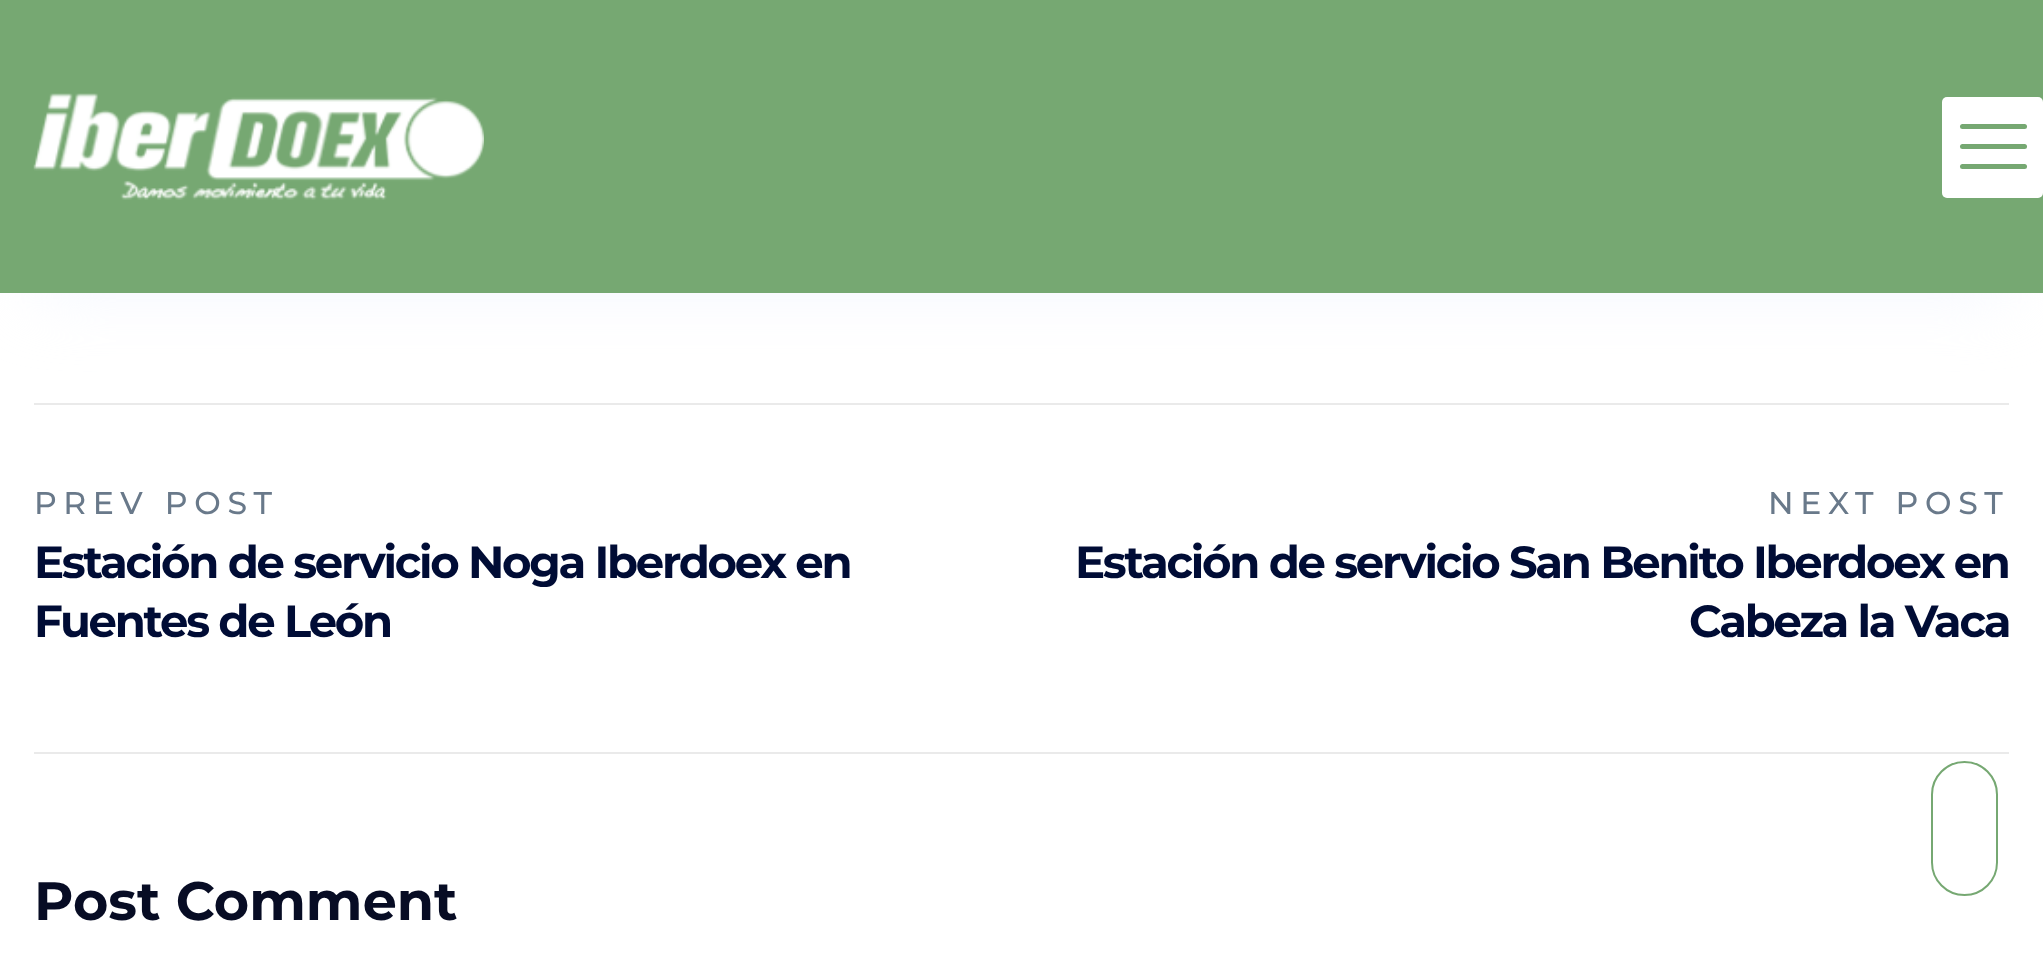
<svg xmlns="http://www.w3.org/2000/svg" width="2043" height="962">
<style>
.a{font:500 31.5px Montserrat;letter-spacing:6.75px;fill:#69798a}
.b{font:bold 45px Montserrat;letter-spacing:-2.25px;fill:#000c35}
.c{font:bold 54px Montserrat;fill:#070c24}
</style>
<rect width="100%" height="100%" fill="#fff"/>
<path fill="#f3f6ff" filter="blur(34px)" d="M34 -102h1975v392H34z"/>
<path fill="#76a872" d="M0 0h2043v293H0z"/>
<image href="1.png" x="33" y="93" width="451" height="107"/>
<rect fill="#fff" x="1942" y="97" width="101" height="101" rx="5"/>
<rect fill="#76a872" x="1960" y="124" width="67" height="5" rx="2.5"/>
<rect fill="#76a872" x="1960" y="144" width="67" height="5" rx="2.5"/>
<rect fill="#76a872" x="1960" y="164" width="67" height="5" rx="2.5"/>
<path fill="#eaeaea" d="M34 403h1975v2H34z"/>
<path fill="#eaeaea" d="M34 752h1975v2H34z"/>
<rect fill="none" stroke="#76a872" stroke-width="2" x="1932" y="762" width="65" height="133" rx="32.5"/>
<text class="a" x="34" y="514">PREV POST</text>
<text class="b" x="34" y="578">Estación de servicio Noga Iberdoex en</text>
<text class="b" x="34" y="637">Fuentes de León</text>
<text class="a" x="1768" y="514">NEXT POST</text>
<text class="b" x="1075" y="578">Estación de servicio San Benito Iberdoex en</text>
<text class="b" x="1689" y="637">Cabeza la Vaca</text>
<text class="c" x="34" y="920">Post Comment</text>
</svg>
